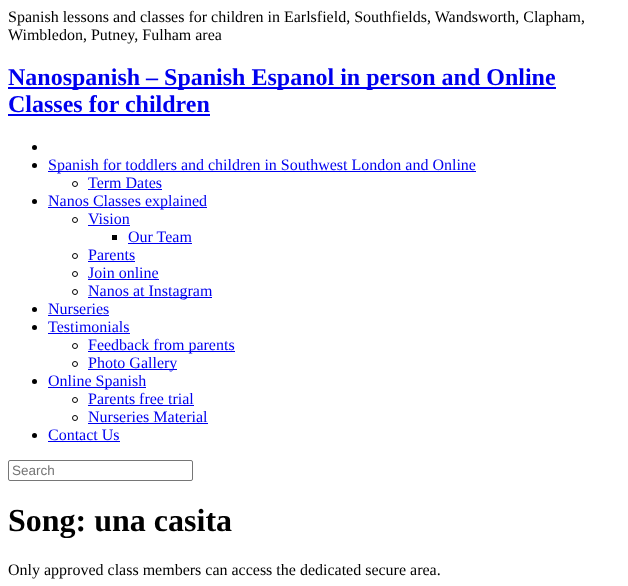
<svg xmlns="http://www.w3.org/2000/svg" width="628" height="586">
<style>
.a{font:16px Liberation Serif;fill:#000}
.b{font:bold 24px Liberation Serif;fill:#00e}
.c{font:16px Liberation Serif;fill:#00e}
.d{font:13.5px Liberation Sans;fill:#757575}
.e{font:bold 32px Liberation Serif;fill:#000}
</style>
<rect width="100%" height="100%" fill="#fff"/>
<path fill="#00e" d="M8 87h548v2H8z"/>
<path fill="#00e" d="M8 114h202v2H8z"/>
<circle fill="#000" cx="34.5" cy="147.5" r="2.5"/>
<circle fill="#000" cx="34.5" cy="165.5" r="2.5"/>
<path fill="#00e" d="M48 171h428v1H48z"/>
<circle fill="none" stroke="#000" cx="75" cy="184" r="2.5"/>
<path fill="#00e" d="M88 189h74v1H88z"/>
<circle fill="#000" cx="34.5" cy="201.5" r="2.5"/>
<path fill="#00e" d="M48 207h159v1H48z"/>
<circle fill="none" stroke="#000" cx="75" cy="220" r="2.5"/>
<path fill="#00e" d="M88 225h42v1H88z"/>
<path fill="#000" d="M112 235h5v5H112z"/>
<path fill="#00e" d="M128 243h64v1H128z"/>
<circle fill="none" stroke="#000" cx="75" cy="256" r="2.5"/>
<path fill="#00e" d="M88 261h47v1H88z"/>
<circle fill="none" stroke="#000" cx="75" cy="274" r="2.5"/>
<path fill="#00e" d="M88 279h71v1H88z"/>
<circle fill="none" stroke="#000" cx="75" cy="292" r="2.5"/>
<path fill="#00e" d="M88 297h124v1H88z"/>
<circle fill="#000" cx="34.5" cy="309.5" r="2.5"/>
<path fill="#00e" d="M48 315h61v1H48z"/>
<circle fill="#000" cx="34.5" cy="327.5" r="2.5"/>
<path fill="#00e" d="M48 333h82v1H48z"/>
<circle fill="none" stroke="#000" cx="75" cy="346" r="2.5"/>
<path fill="#00e" d="M88 351h147v1H88z"/>
<circle fill="none" stroke="#000" cx="75" cy="364" r="2.5"/>
<path fill="#00e" d="M88 369h89v1H88z"/>
<circle fill="#000" cx="34.5" cy="381.5" r="2.5"/>
<path fill="#00e" d="M48 387h98v1H48z"/>
<circle fill="none" stroke="#000" cx="75" cy="400" r="2.5"/>
<path fill="#00e" d="M88 405h106v1H88z"/>
<circle fill="none" stroke="#000" cx="75" cy="418" r="2.5"/>
<path fill="#00e" d="M88 423h120v1H88z"/>
<circle fill="#000" cx="34.5" cy="435.5" r="2.5"/>
<path fill="#00e" d="M48 441h72v1H48z"/>
<rect fill="none" stroke="#767676" x="8.5" y="460.5" width="184" height="20" rx="1.5"/>
<text class="a" x="8" y="22">Spanish lessons and classes for children in Earlsfield, Southfields, Wandsworth, Clapham,</text>
<text class="a" x="8" y="40">Wimbledon, Putney, Fulham area</text>
<text class="b" x="8" y="85">Nanospanish – Spanish Espanol in person and Online</text>
<text class="b" x="8" y="112">Classes for children</text>
<text class="c" x="48" y="170">Spanish for toddlers and children in Southwest London and Online</text>
<text class="c" x="88" y="188">Term Dates</text>
<text class="c" x="48" y="206">Nanos Classes explained</text>
<text class="c" x="88" y="224">Vision</text>
<text class="c" x="128" y="242">Our Team</text>
<text class="c" x="88" y="260">Parents</text>
<text class="c" x="88" y="278">Join online</text>
<text class="c" x="88" y="296">Nanos at Instagram</text>
<text class="c" x="48" y="314">Nurseries</text>
<text class="c" x="48" y="332">Testimonials</text>
<text class="c" x="88" y="350">Feedback from parents</text>
<text class="c" x="88" y="368">Photo Gallery</text>
<text class="c" x="48" y="386">Online Spanish</text>
<text class="c" x="88" y="404">Parents free trial</text>
<text class="c" x="88" y="422">Nurseries Material</text>
<text class="c" x="48" y="440">Contact Us</text>
<text class="d" x="12" y="475">Search</text>
<text class="e" x="8" y="531">Song: una casita</text>
<text class="a" x="8" y="575">Only approved class members can access the dedicated secure area.</text>
</svg>
